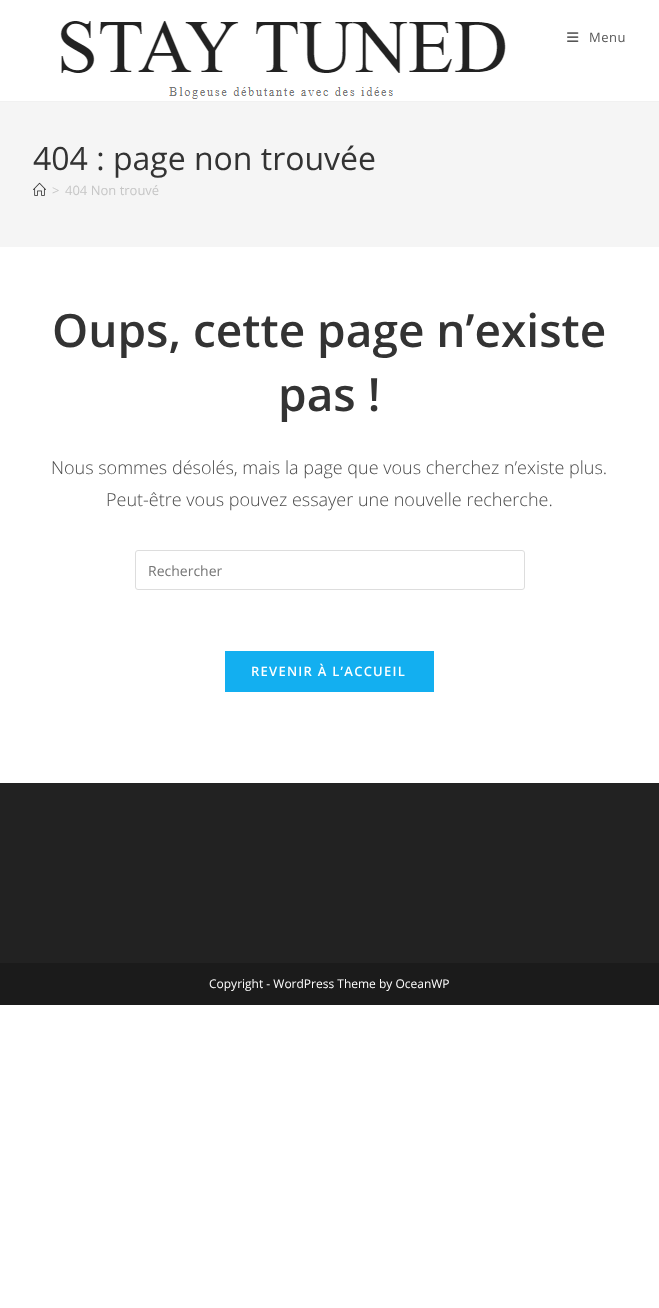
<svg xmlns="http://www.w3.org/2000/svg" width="659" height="1308">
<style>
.a{font:13px Open Sans;letter-spacing:0.5px;fill:#555}
.b{font:32px Open Sans;fill:#333}
.c{font:13px Open Sans;fill:#c6c6c6}
.d{font:600 46px Open Sans;fill:#333}
.e{font:300 18px Open Sans;fill:#4a4a4a}
.f{font:14px Open Sans;fill:#757575}
.g{font:600 13px Open Sans;letter-spacing:1.25px;fill:#fff}
.h{font:12px Open Sans;fill:#fff}
</style>
<rect width="100%" height="100%" fill="#fff"/>
<path fill="#f1f1f1" d="M0 101h659v1H0z"/>
<image href="1.png" x="60" y="21" width="446" height="78"/>
<image href="2.png" x="567" y="32" width="12" height="10"/>
<path fill="#f5f5f5" d="M0 102h659v145H0z"/>
<image href="3.png" x="33" y="182" width="13" height="14"/>
<rect fill="none" stroke="#ddd" x="135.5" y="550.5" width="389" height="39" rx="2.5"/>
<path fill="#13aff0" d="M225 651h209v41H225z"/>
<path fill="#222" d="M0 783h659v180H0z"/>
<path fill="#1b1b1b" d="M0 963h659v42H0z"/>
<text class="a" x="589" y="42">Menu</text>
<text class="b" x="33" y="170">404 : page non trouvée</text>
<text class="c" x="52" y="195">&gt;</text>
<text class="c" x="65" y="195">404 Non trouvé</text>
<text class="d" x="52" y="347">Oups, cette page n’existe</text>
<text class="d" x="278" y="411">pas !</text>
<text class="e" x="51" y="474">Nous sommes désolés, mais la page que vous cherchez n’existe plus.</text>
<text class="e" x="106" y="506">Peut-être vous pouvez essayer une nouvelle recherche.</text>
<text class="f" x="148" y="576">Rechercher</text>
<text class="g" x="251" y="676">REVENIR À L’ACCUEIL</text>
<text class="h" x="209" y="988">Copyright - WordPress Theme by OceanWP</text>
</svg>
